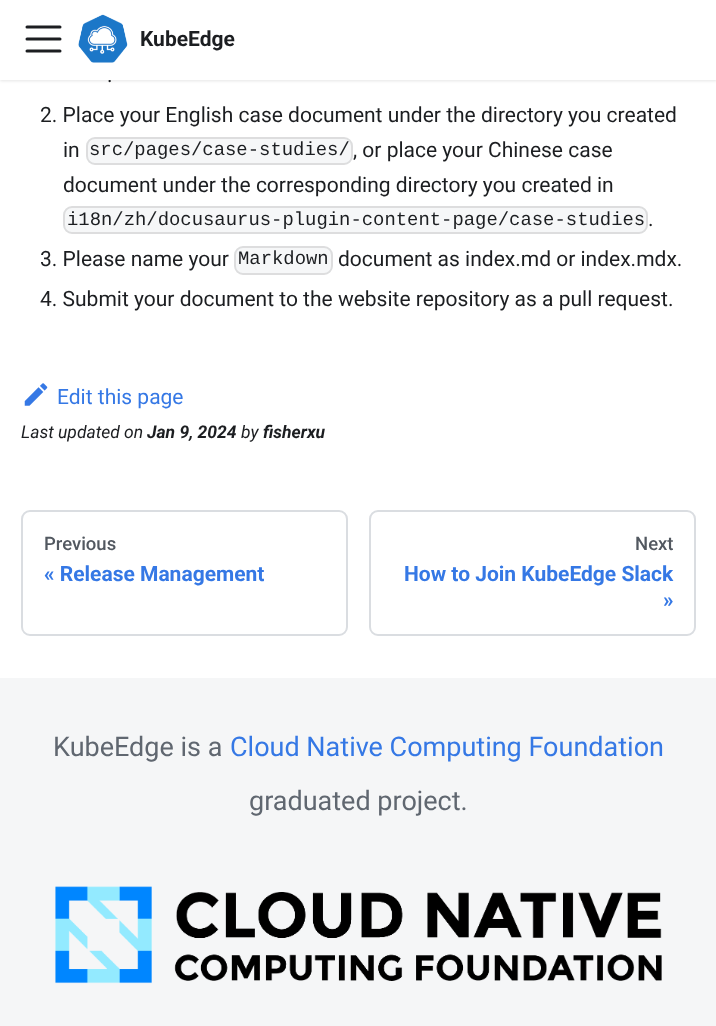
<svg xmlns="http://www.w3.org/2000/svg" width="716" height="1026">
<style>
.a{font:21px Roboto;fill:#1c1e21}
.b{font:bold 21px Roboto;fill:#1c1e21}
.c{font:18.9px Liberation Mono;fill:#1c1e21}
.d{font:21px Roboto;fill:#3578e5}
.e{font:italic 17.5px Roboto;fill:#1c1e21}
.f{font:italic bold 17.5px Roboto;fill:#1c1e21}
.g{font:500 18.5px Roboto;fill:#525860}
.h{font:bold 21px Roboto;fill:#3578e5}
.i{font:27px Roboto;fill:#606770}
.j{font:27px Roboto;fill:#3578e5}
</style>
<rect width="100%" height="100%" fill="#fff"/>
<path fill="#0000001a" filter="blur(1.5px)" d="M0 2h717v79H0z"/>
<rect fill="#f6f7f8" x="86" y="137" width="267" height="28" rx="9"/>
<rect fill="none" stroke="#0000001a" stroke-width="2" x="87" y="138" width="265" height="26" rx="8"/>
<rect fill="#f6f7f8" x="63" y="206" width="585" height="28" rx="9"/>
<rect fill="none" stroke="#0000001a" stroke-width="2" x="64" y="207" width="583" height="26" rx="8"/>
<rect fill="#f6f7f8" x="234" y="246" width="99" height="29" rx="9"/>
<rect fill="none" stroke="#0000001a" stroke-width="2" x="235" y="247" width="97" height="27" rx="8"/>
<image href="2.png" x="24" y="383" width="24" height="23"/>
<rect fill="none" stroke="#dadde1" stroke-width="2" x="22" y="511" width="325" height="124" rx="8"/>
<rect fill="none" stroke="#dadde1" stroke-width="2" x="370" y="511" width="325" height="124" rx="8"/>
<path fill="#f5f6f7" d="M0 678h716v348H0z"/>
<image href="3.png" x="55" y="886" width="607" height="98"/>
<text class="a" x="107" y="82">.</text>
<path fill="#fff" d="M0 0h716v80H0z"/>
<text class="b" x="140" y="46">KubeEdge</text>
<path fill="none" stroke="#1c1e21" stroke-width="3" stroke-linecap="round" d="M27 27h33m-33 12h33m-33 12h33"/>
<image href="1.png" x="78" y="14" width="50" height="49"/>
<text class="a" x="40" y="122">2. Place your English case document under the directory you created</text>
<text class="a" x="63" y="157">in</text>
<text class="c" x="89" y="155">src/pages/case-studies/</text>
<text class="a" x="353" y="157">, or place your Chinese case</text>
<text class="a" x="63" y="192">document under the corresponding directory you created in</text>
<text class="c" x="67" y="225">i18n/zh/docusaurus-plugin-content-page/case-studies</text>
<text class="a" x="648" y="226">.</text>
<text class="a" x="40" y="266">3. Please name your</text>
<text class="c" x="238" y="264">Markdown</text>
<text class="a" x="338" y="266">document as index.md or index.mdx.</text>
<text class="a" x="40" y="306">4. Submit your document to the website repository as a pull request.</text>
<text class="d" x="57" y="404">Edit this page</text>
<text class="e" x="21" y="438">Last updated on</text>
<text class="f" x="147" y="438">Jan 9, 2024</text>
<text class="e" x="241" y="438">by</text>
<text class="f" x="263" y="438">fisherxu</text>
<text class="g" x="44" y="550">Previous</text>
<text class="h" x="44" y="581">« Release Management</text>
<text class="g" x="635" y="550">Next</text>
<text class="h" x="404" y="581">How to Join KubeEdge Slack</text>
<text class="h" x="663" y="607">»</text>
<text class="i" x="53" y="756">KubeEdge is a</text>
<text class="j" x="230" y="756">Cloud Native Computing Foundation</text>
<text class="i" x="249" y="810">graduated project.</text>
</svg>
